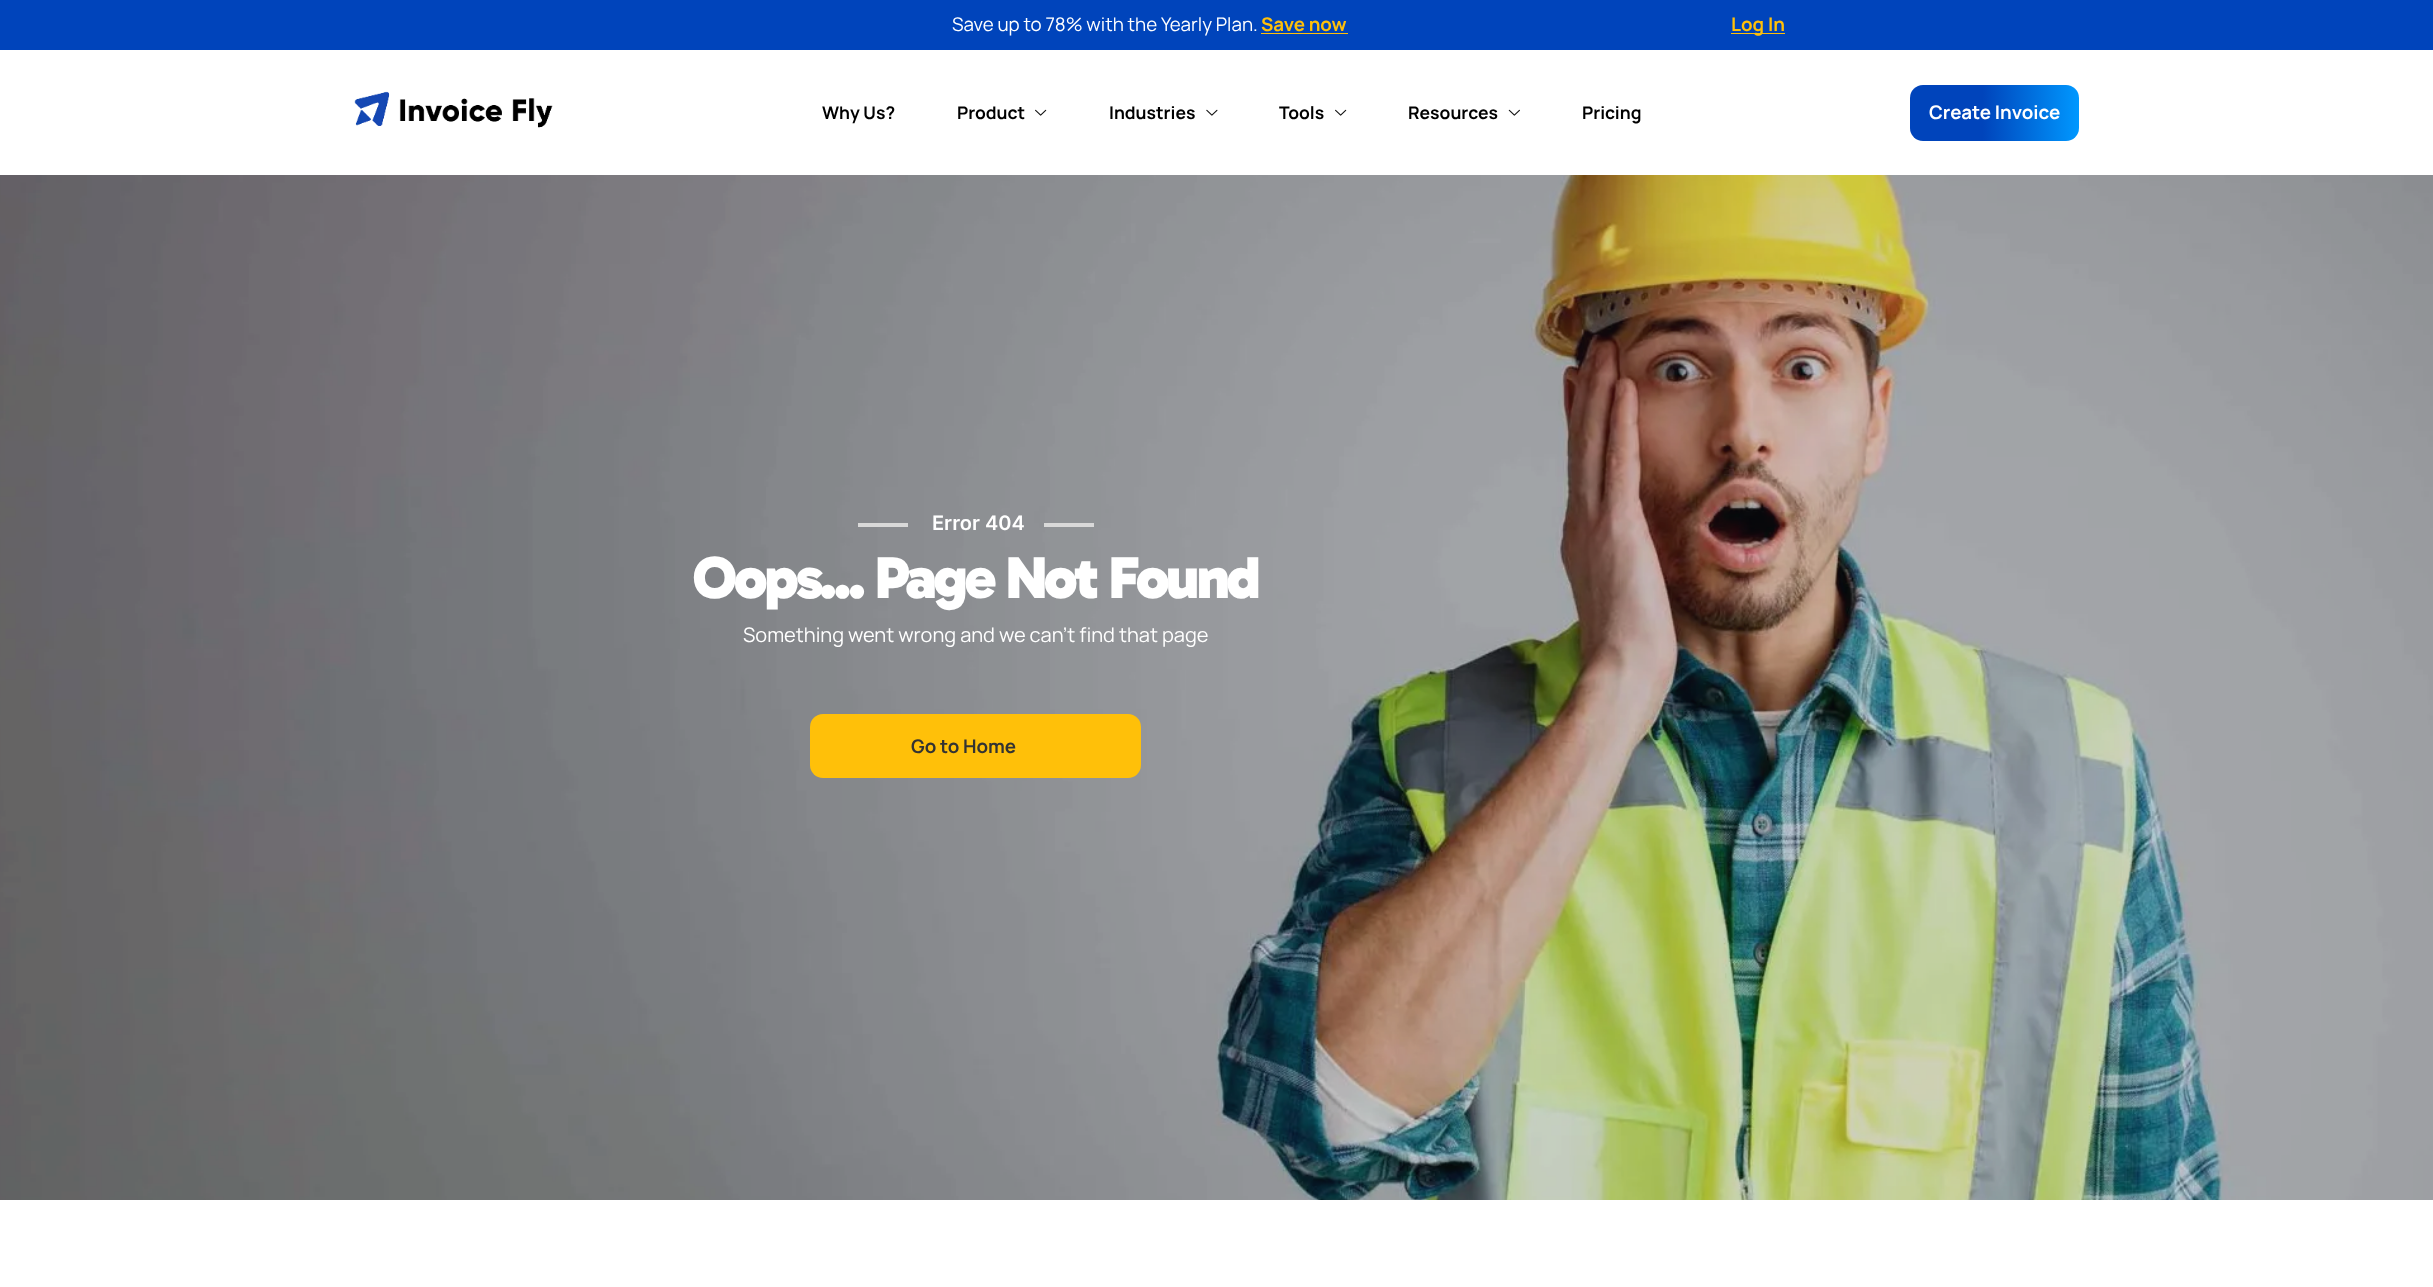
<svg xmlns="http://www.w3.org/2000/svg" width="2433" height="1287">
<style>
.a{font:18.75px Manrope;fill:#fff}
.b{font:bold 18.75px Manrope;fill:#ffc009}
.c{font:bold 17.5px Manrope;fill:#000}
.d{font:bold 18.75px Manrope;fill:#fff}
.e{font:600 20px Inter;fill:#fff}
.f{font:900 60px Gabarito;letter-spacing:-3px;fill:#fff}
.g{font:20px Manrope;fill:#fff}
.h{font:bold 18.75px Manrope;fill:#333}
</style>
<defs>
<linearGradient id="g1" gradientUnits="userSpaceOnUse" x1="1910" y1="113" x2="2079" y2="113"><stop offset="0.43" stop-color="#04b"/><stop offset="1" stop-color="#0098ff"/></linearGradient>
</defs>
<rect width="100%" height="100%" fill="#fff"/>
<path fill="#04b" d="M0 0h2433v50H0z"/>
<path fill="#ffc009" d="M1261 33h87v1H1261z"/>
<path fill="#ffc009" d="M1731 33h54v1H1731z"/>
<image href="1.png" x="354" y="91" width="199" height="37"/>
<image href="2.png" x="1035" y="109" width="12" height="7"/>
<image href="3.png" x="1206" y="109" width="12" height="7"/>
<image href="2.png" x="1335" y="109" width="12" height="7"/>
<image href="4.png" x="1508" y="109" width="12" height="7"/>
<rect fill="url(#g1)" x="1910" y="85" width="169" height="56" rx="13"/>
<image href="5.png" x="0" y="175" width="2433" height="1025"/>
<path fill="#d9d9d9" d="M858 523h50v4H858z"/>
<path fill="#d9d9d9" d="M1044 523h50v4H1044z"/>
<rect fill="#ffc009" x="810" y="714" width="331" height="64" rx="13"/>
<text class="a" x="952" y="31">Save up to 78% with the Yearly Plan.</text>
<text class="b" x="1261" y="31">Save now</text>
<text class="b" x="1731" y="31">Log In</text>
<text class="c" x="822" y="119">Why Us?</text>
<text class="c" x="957" y="119">Product</text>
<text class="c" x="1109" y="119">Industries</text>
<text class="c" x="1279" y="119">Tools</text>
<text class="c" x="1408" y="119">Resources</text>
<text class="c" x="1582" y="119">Pricing</text>
<text class="d" x="1929" y="119">Create Invoice</text>
<text class="e" x="932" y="530">Error 404</text>
<text class="f" x="693" y="598">Oops... Page Not Found</text>
<text class="g" x="743" y="642">Something went wrong and we can't find that page</text>
<text class="h" x="911" y="753">Go to Home</text>
</svg>
